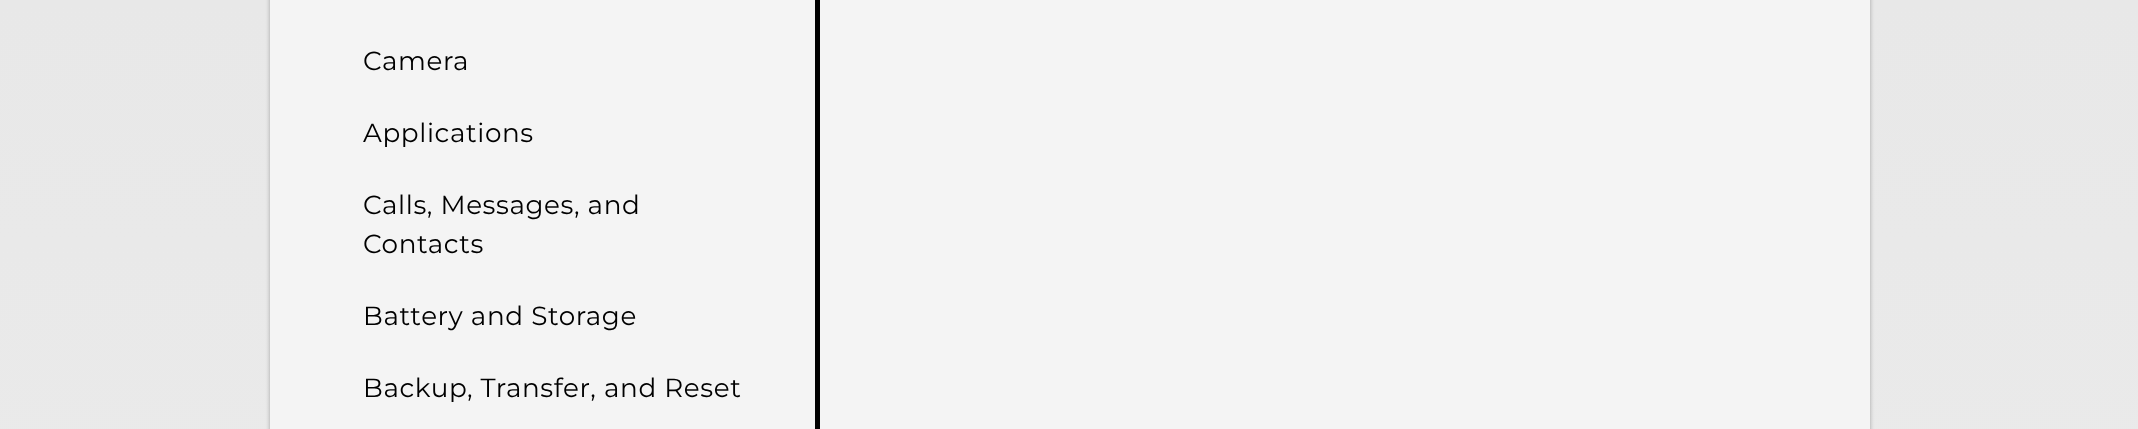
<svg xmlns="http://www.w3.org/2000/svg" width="2138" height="429">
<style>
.a{font:26.25px Montserrat;letter-spacing:0.6px;fill:#000}
</style>
<defs>
<linearGradient id="g1" gradientUnits="userSpaceOnUse" x1="1069" y1="-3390" x2="1069" y2="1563"><stop offset="0" stop-color="#dadada"/><stop offset="0.88" stop-color="#ececec"/><stop offset="1" stop-color="#ececec"/></linearGradient>
</defs>
<rect width="100%" height="100%" fill="#fff"/>
<path fill="url(#g1)" d="M0 0h2138v429H0z"/>
<path fill="#0000004d" filter="blur(2px)" d="M270 -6h1600v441H270z"/>
<path fill="#f4f4f4" d="M270 0h1600v429H270z"/>
<path fill="#000" d="M815 0h5v429H815z"/>
<text class="a" x="363" y="70">Camera</text>
<text class="a" x="363" y="142">Applications</text>
<text class="a" x="363" y="214">Calls, Messages, and</text>
<text class="a" x="363" y="253">Contacts</text>
<text class="a" x="363" y="325">Battery and Storage</text>
<text class="a" x="363" y="397">Backup, Transfer, and Reset</text>
</svg>
